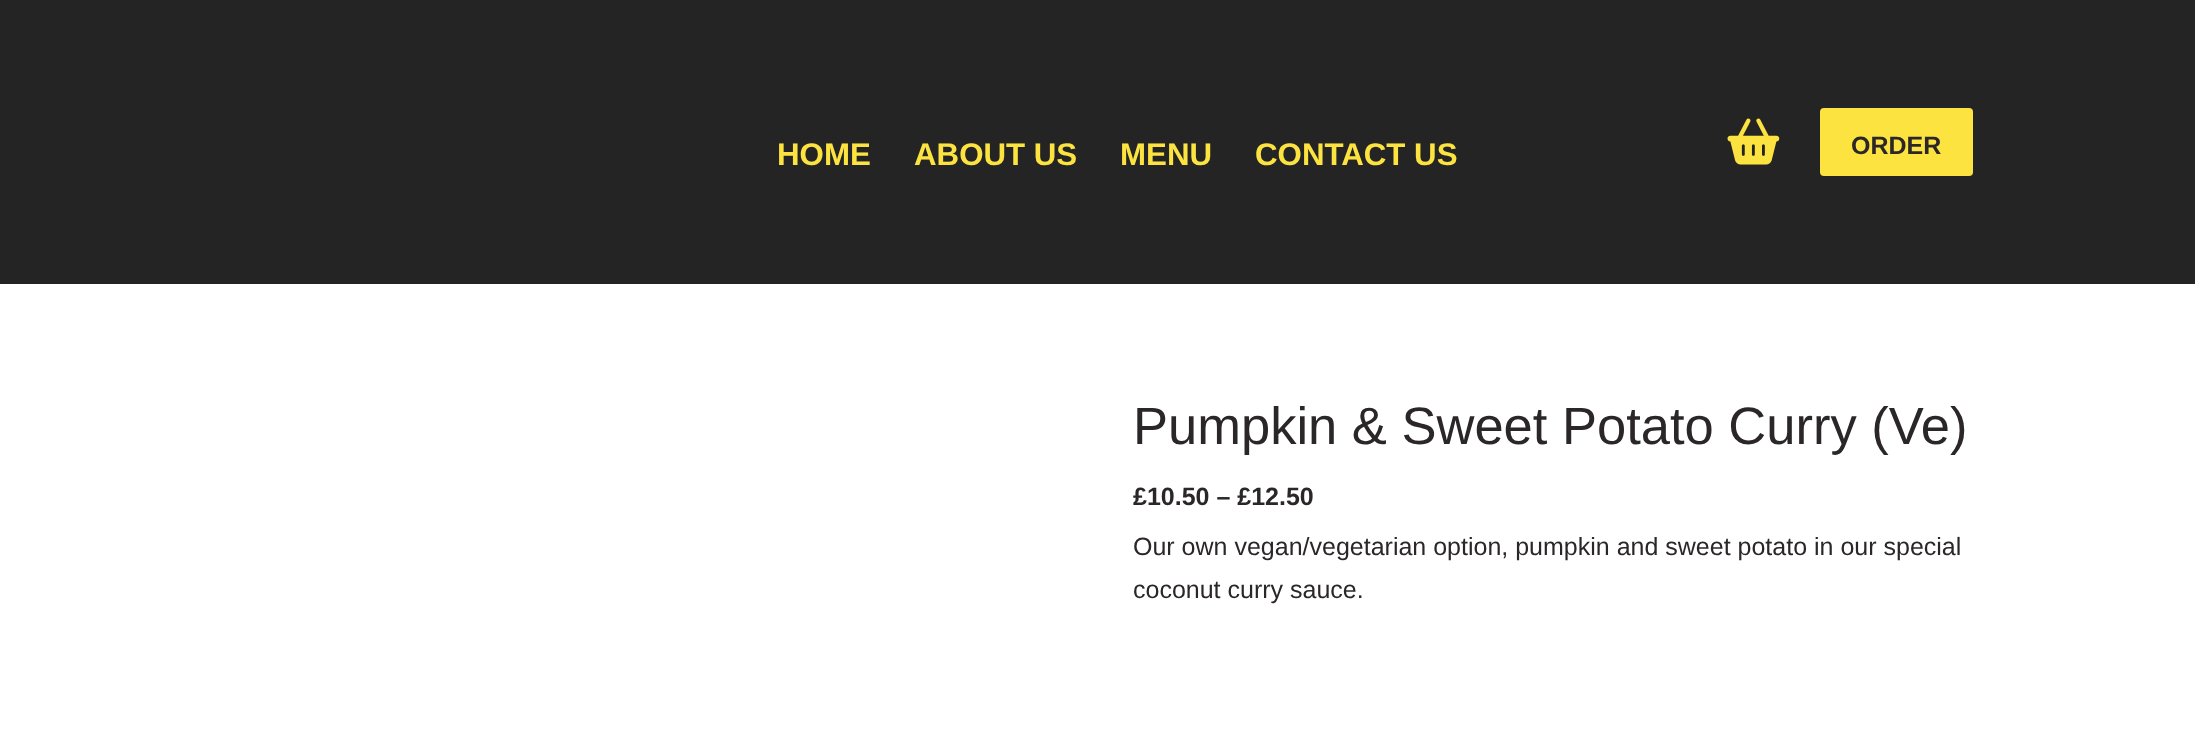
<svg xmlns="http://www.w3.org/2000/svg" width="2195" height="750">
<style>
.a{font:bold 31.25px Liberation Sans;fill:#fce340}
.b{font:bold 25px Liberation Sans;fill:#2b2728}
.c{font:52.5px Liberation Sans;fill:#2b2728}
.d{font:25px Liberation Sans;fill:#2b2728}
</style>
<rect width="100%" height="100%" fill="#fff"/>
<path fill="#242424" d="M0 0h2195v284H0z"/>
<image href="1.png" x="1727" y="118" width="53" height="47"/>
<rect fill="#fce340" x="1820" y="108" width="153" height="68" rx="4"/>
<text class="a" x="777" y="165">HOME</text>
<text class="a" x="914" y="165">ABOUT US</text>
<text class="a" x="1120" y="165">MENU</text>
<text class="a" x="1255" y="165">CONTACT US</text>
<text class="b" x="1851" y="154">ORDER</text>
<text class="c" x="1133" y="444">Pumpkin &amp; Sweet Potato Curry (Ve)</text>
<text class="b" x="1133" y="505">£10.50 – £12.50</text>
<text class="d" x="1133" y="555">Our own vegan/vegetarian option, pumpkin and sweet potato in our special</text>
<text class="d" x="1133" y="598">coconut curry sauce.</text>
</svg>
